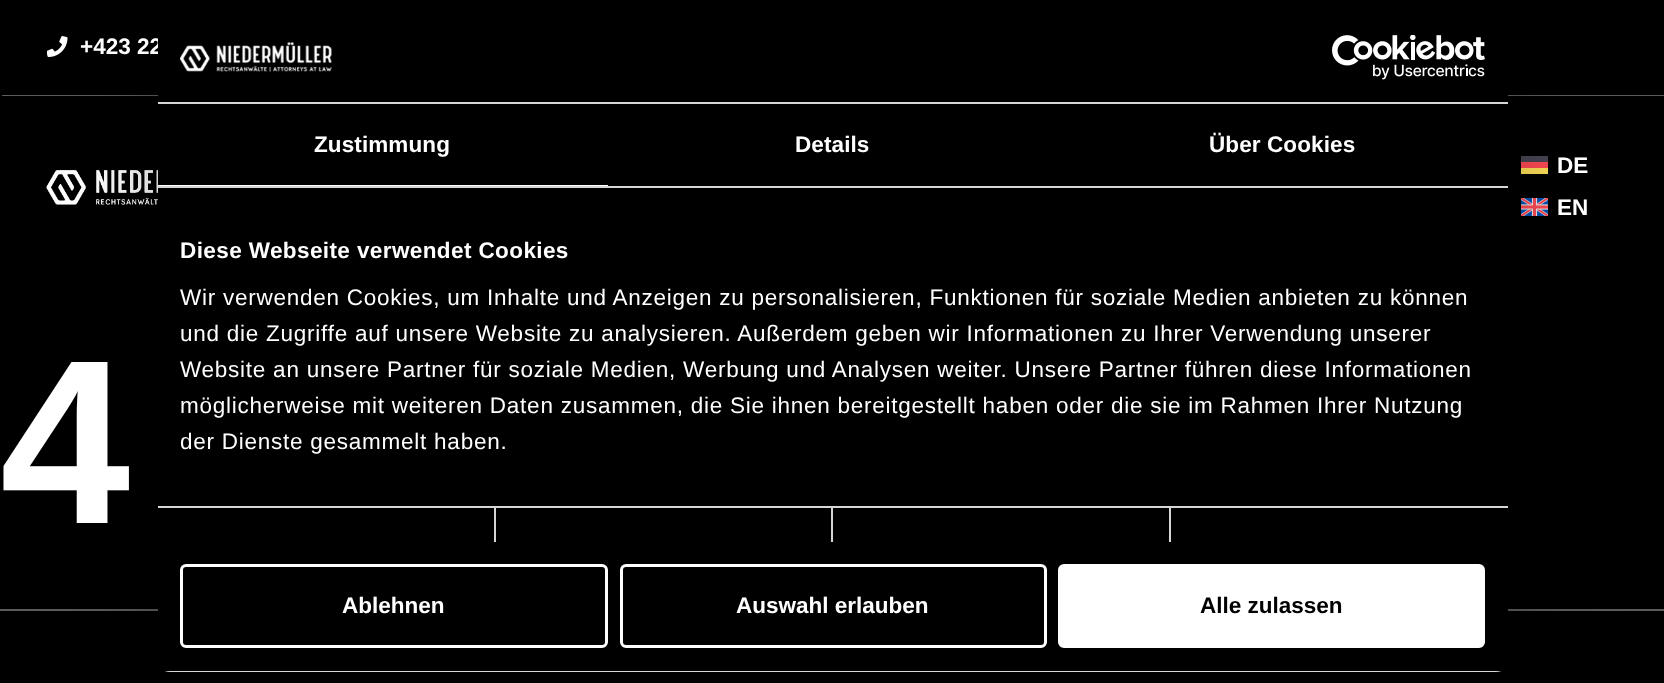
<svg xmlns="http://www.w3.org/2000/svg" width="1664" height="683">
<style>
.a{font:bold 22.5px Liberation Sans;fill:#fff}
.b{font:bold 234px Liberation Sans;fill:#fff}
.c{font:bold 22.5px Liberation Sans;letter-spacing:0.1px;fill:#fff}
.d{font:bold 22.5px Liberation Sans;letter-spacing:0.4px;fill:#fff}
.e{font:22.5px Liberation Sans;letter-spacing:0.75px;fill:#fff}
.f{font:bold 22.5px Liberation Sans;fill:#000}
</style>
<defs>
<clipPath id="clip1"><rect x="158" y="12" width="1350" height="660" rx="12"/></clipPath>
</defs>
<rect width="100%" height="100%" fill="#000"/>
<path fill="#5c5c5c" d="M2 95h1662v1H2z"/>
<image href="1.png" x="47" y="36" width="21" height="21"/>
<image href="2.png" x="46" y="170" width="112" height="35"/>
<path fill="#464655" d="M1521 156h27v6H1521z"/>
<path fill="#ff4b55" d="M1521 162h27v6H1521z"/>
<path fill="#ffe15a" d="M1521 168h27v6H1521z"/>
<image href="3.png" x="1521" y="198" width="27" height="18"/>
<path fill="#5c5c5c" d="M0 609h1664v2H0z"/>
<rect fill="#0000004d" filter="blur(51px)" x="158" y="60" width="1350" height="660" rx="12"/>
<text class="a" x="80" y="54">+423 22</text>
<text class="a" x="1557" y="173">DE</text>
<text class="a" x="1557" y="215">EN</text>
<text class="b" x="0" y="523">4</text>
<rect fill="#000" x="158" y="12" width="1350" height="660" rx="12"/>
<path fill="#d6d6d6" d="M158 102h1350v2H158z"/>
<image href="4.png" x="180" y="42" width="152" height="30"/>
<image href="5.png" x="1332" y="35" width="153" height="45"/>
<path fill="#d6d6d6" d="M158 186h1350v2H158z"/>
<path fill="#fff" d="M158 185h450v1H158z"/>
<text class="c" x="314" y="152">Zustimmung</text>
<text class="c" x="795" y="152">Details</text>
<text class="c" x="1209" y="152">Über Cookies</text>
<text class="d" x="180" y="258">Diese Webseite verwendet Cookies</text>
<text class="e" x="180" y="305">Wir verwenden Cookies, um Inhalte und Anzeigen zu personalisieren, Funktionen für soziale Medien anbieten zu können</text>
<text class="e" x="180" y="341">und die Zugriffe auf unsere Website zu analysieren. Außerdem geben wir Informationen zu Ihrer Verwendung unserer</text>
<text class="e" x="180" y="377">Website an unsere Partner für soziale Medien, Werbung und Analysen weiter. Unsere Partner führen diese Informationen</text>
<text class="e" x="180" y="413">möglicherweise mit weiteren Daten zusammen, die Sie ihnen bereitgestellt haben oder die sie im Rahmen Ihrer Nutzung</text>
<text class="e" x="180" y="449">der Dienste gesammelt haben.</text>
<path fill="#d6d6d6" d="M494 507h2v35H494z"/>
<path fill="#d6d6d6" d="M831 507h2v35H831z"/>
<path fill="#d6d6d6" d="M1169 507h2v35H1169z"/>
<path fill="#d6d6d6" d="M158 506h1350v2H158z"/>
<g clip-path="url(#clip1)">
<path fill="#d6d6d6" d="M158 671h1350v1H158z"/>
</g>
<rect fill="none" stroke="#fff" stroke-width="3" x="181.5" y="565.5" width="425" height="81" rx="4.5"/>
<text class="a" x="342" y="613">Ablehnen</text>
<rect fill="none" stroke="#fff" stroke-width="3" x="621.5" y="565.5" width="424" height="81" rx="4.5"/>
<text class="a" x="736" y="613">Auswahl erlauben</text>
<rect fill="#fff" stroke="#fff" stroke-width="3" x="1059.5" y="565.5" width="424" height="81" rx="4.5"/>
<text class="f" x="1200" y="613">Alle zulassen</text>
</svg>
